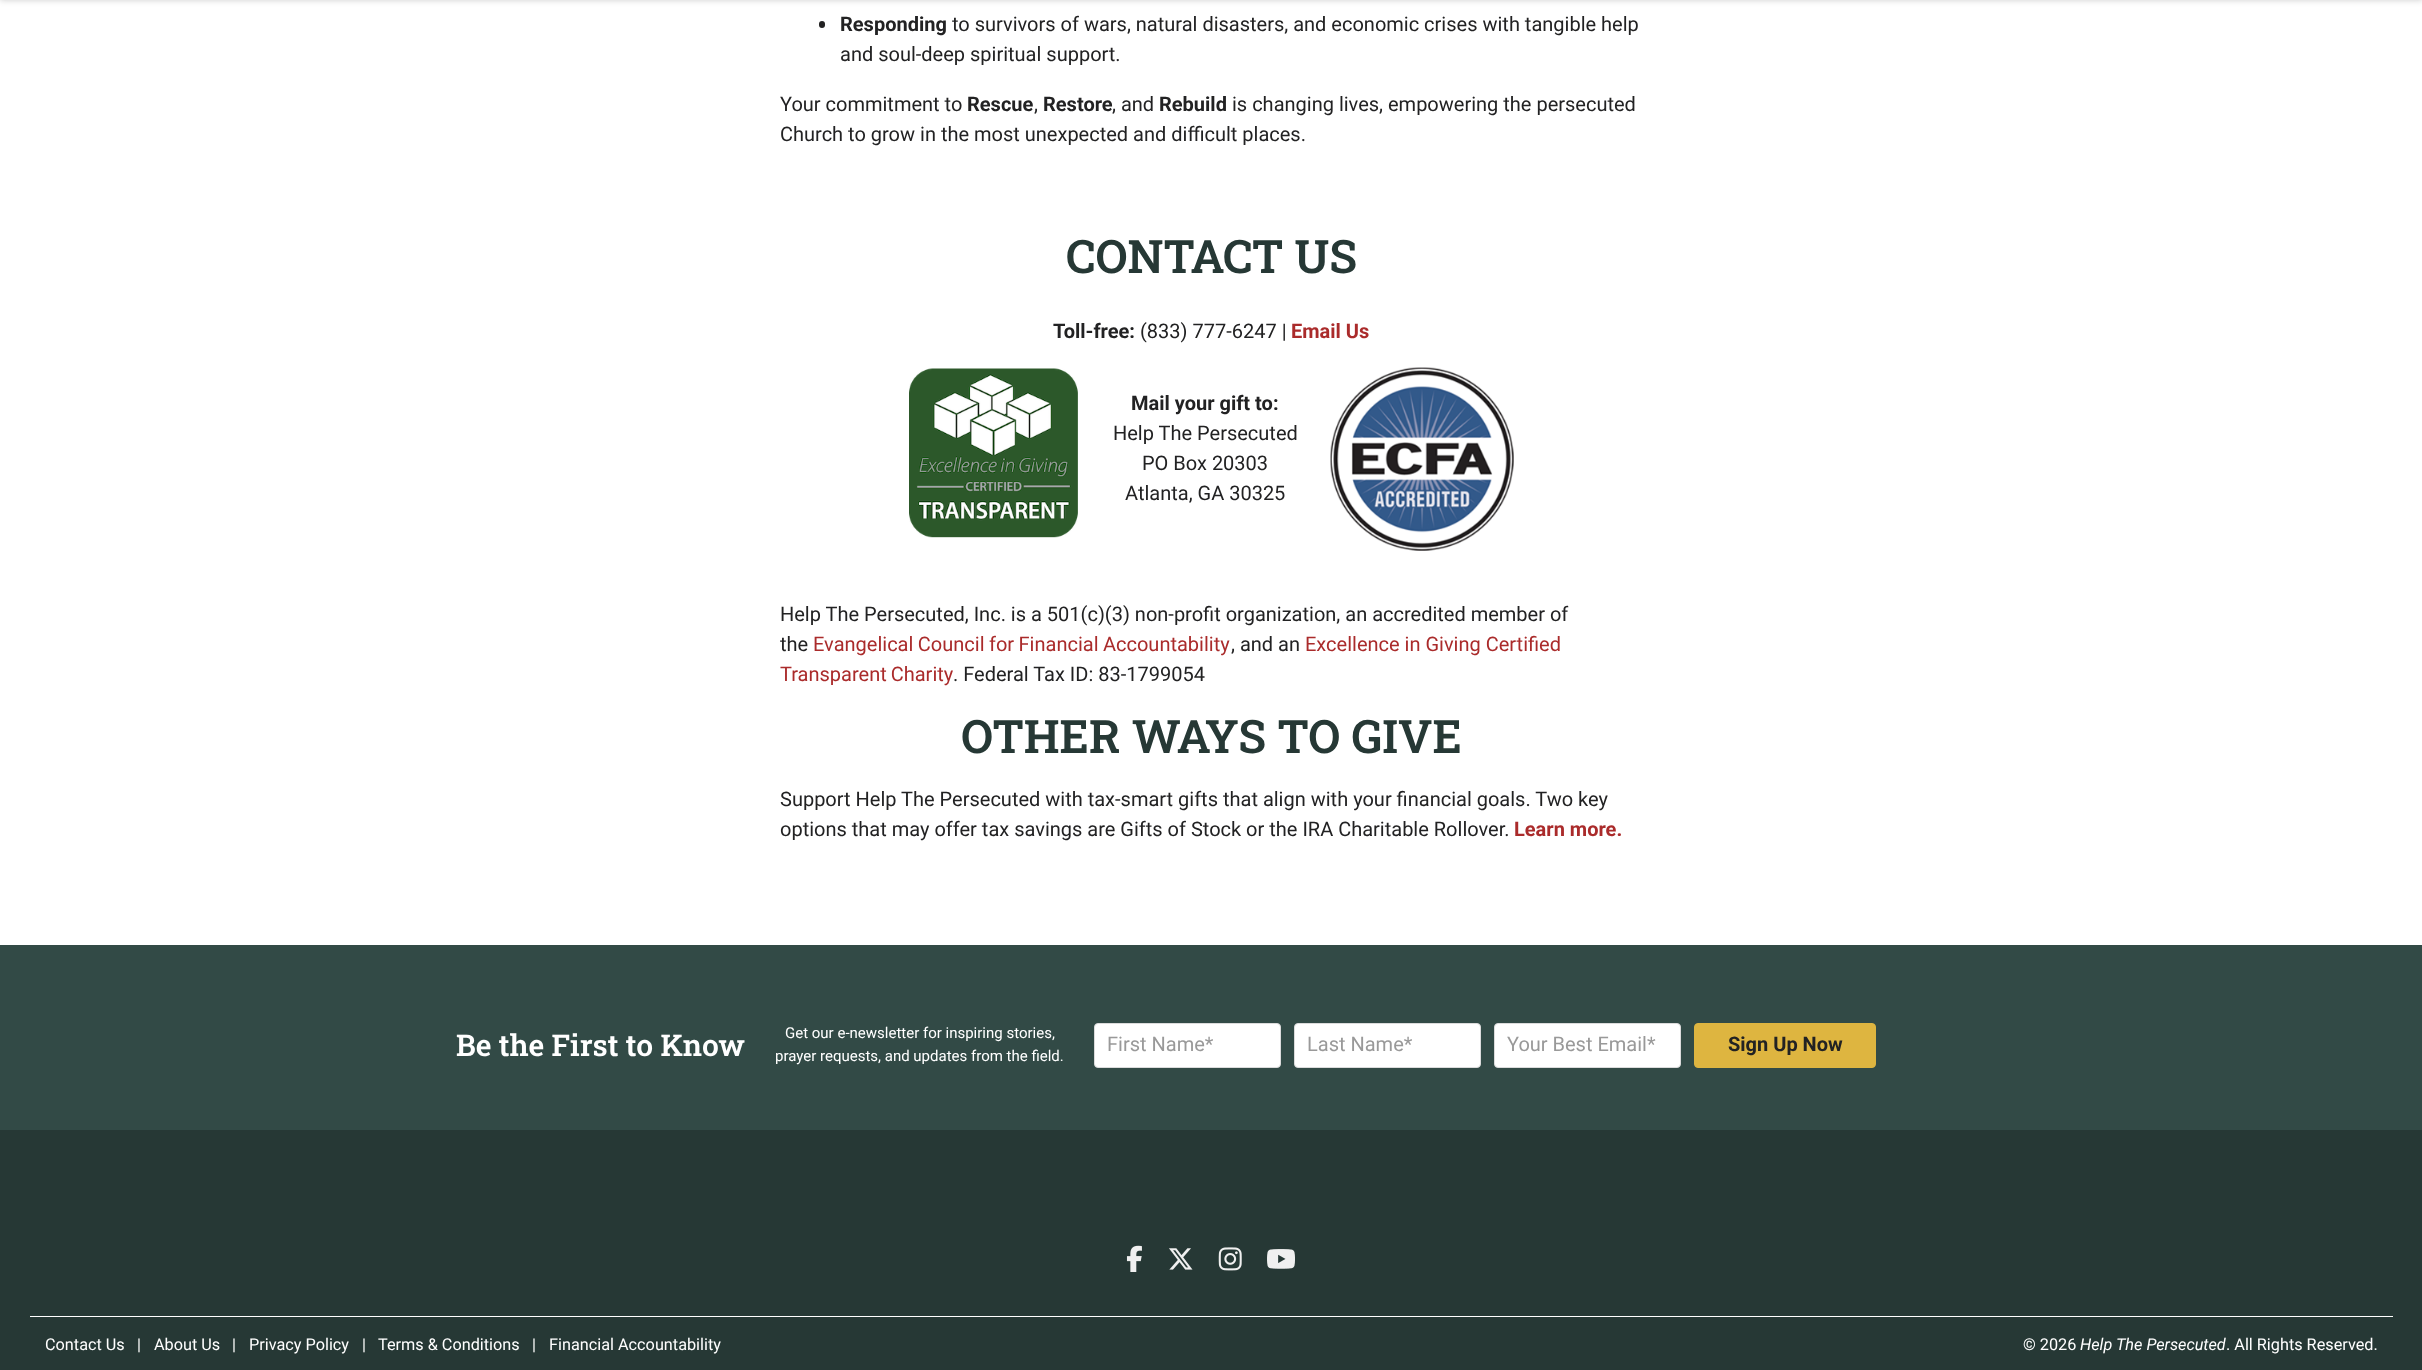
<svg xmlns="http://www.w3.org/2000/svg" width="2422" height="1370">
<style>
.a{font:bold 20px Roboto;fill:#222223}
.b{font:20px Roboto;fill:#222223}
.c{font:600 46px Roboto Slab;fill:#263835}
.d{font:bold 20px Roboto;fill:#aa2b2b}
.e{font:20px Roboto;fill:#aa2b2b}
.f{font:600 30px Roboto Slab;fill:#fff}
.g{font:15px Roboto;fill:#fff}
.h{font:20px Roboto;fill:#999}
.i{font:16.25px Roboto;fill:#fff}
.j{font:italic 16.25px Roboto;fill:#fff}
</style>
<rect width="100%" height="100%" fill="#fff"/>
<path fill="#00000033" filter="blur(3px)" d="M0 -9h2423v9H0z"/>
<rect fill="#222223" x="819" y="21" width="6" height="7" rx="3"/>
<image href="1.png" x="909" y="368" width="169" height="170"/>
<image href="2.png" x="1330" y="367" width="184" height="184"/>
<path fill="#324a46" d="M0 945h2422v185H0z"/>
<rect fill="#fff" stroke="#dbdbdb" x="1094.5" y="1023.5" width="186" height="44" rx="3.5"/>
<rect fill="#fff" stroke="#dbdbdb" x="1294.5" y="1023.5" width="186" height="44" rx="3.5"/>
<rect fill="#fff" stroke="#dbdbdb" x="1494.5" y="1023.5" width="186" height="44" rx="3.5"/>
<rect fill="#deb540" stroke="#deb540" x="1694.5" y="1023.5" width="181" height="44" rx="3.5"/>
<path fill="#263835" d="M0 1130h2422v240H0z"/>
<image href="3.png" x="1126" y="1245" width="16" height="27"/>
<image href="4.png" x="1169" y="1248" width="24" height="22"/>
<image href="5.png" x="1218" y="1247" width="24" height="24"/>
<image href="6.png" x="1267" y="1249" width="28" height="20"/>
<path fill="#fff" d="M30 1316h2363v1H30z"/>
<text class="a" x="840" y="31">Responding</text>
<text class="b" x="952" y="31">to survivors of wars, natural disasters, and economic crises with tangible help</text>
<text class="b" x="840" y="61">and soul-deep spiritual support.</text>
<text class="b" x="780" y="111">Your commitment to</text>
<text class="a" x="967" y="111">Rescue</text>
<text class="b" x="1034" y="111">,</text>
<text class="a" x="1043" y="111">Restore</text>
<text class="b" x="1112" y="111">, and</text>
<text class="a" x="1159" y="111">Rebuild</text>
<text class="b" x="1232" y="111">is changing lives, empowering the persecuted</text>
<text class="b" x="780" y="141">Church to grow in the most unexpected and difficult places.</text>
<text class="c" x="1066" y="273">CONTACT US</text>
<text class="a" x="1053" y="338">Toll-free:</text>
<text class="b" x="1140" y="338">(833) 777-6247 |</text>
<text class="d" x="1291" y="338">Email Us</text>
<text class="a" x="1131" y="410">Mail your gift to:</text>
<text class="b" x="1113" y="440">Help The Persecuted</text>
<text class="b" x="1142" y="470">PO Box 20303</text>
<text class="b" x="1125" y="500">Atlanta, GA 30325</text>
<text class="b" x="780" y="621">Help The Persecuted, Inc. is a 501(c)(3) non-profit organization, an accredited member of</text>
<text class="b" x="780" y="651">the</text>
<text class="e" x="813" y="651" word-spacing="-0.5">Evangelical Council for Financial Accountability</text>
<text class="b" x="1231" y="651">, and an</text>
<text class="e" x="1305" y="651">Excellence in Giving Certified</text>
<text class="e" x="780" y="681" word-spacing="-1">Transparent Charity</text>
<text class="b" x="953" y="681">. Federal Tax ID: 83-1799054</text>
<text class="c" x="961" y="753">OTHER WAYS TO GIVE</text>
<text class="b" x="780" y="806">Support Help The Persecuted with tax-smart gifts that align with your financial goals. Two key</text>
<text class="b" x="780" y="836">options that may offer tax savings are Gifts of Stock or the IRA Charitable Rollover.</text>
<text class="d" x="1514" y="836">Learn more.</text>
<text class="f" x="456" y="1056">Be the First to Know</text>
<text class="g" x="785" y="1038">Get our e-newsletter for inspiring stories,</text>
<text class="g" x="775" y="1061">prayer requests, and updates from the field.</text>
<text class="h" x="1107" y="1051">First Name*</text>
<text class="h" x="1307" y="1051">Last Name*</text>
<text class="h" x="1507" y="1051">Your Best Email*</text>
<text class="a" x="1728" y="1051">Sign Up Now</text>
<text class="i" x="45" y="1350">Contact Us</text>
<text class="i" x="137" y="1350">|</text>
<text class="i" x="154" y="1350">About Us</text>
<text class="i" x="232" y="1350">|</text>
<text class="i" x="249" y="1350">Privacy Policy</text>
<text class="i" x="362" y="1350">|</text>
<text class="i" x="378" y="1350">Terms &amp; Conditions</text>
<text class="i" x="532" y="1350">|</text>
<text class="i" x="549" y="1350">Financial Accountability</text>
<text class="i" x="2023" y="1350">© 2026</text>
<text class="j" x="2080" y="1350">Help The Persecuted</text>
<text class="i" x="2226" y="1350">. All Rights Reserved.</text>
</svg>
